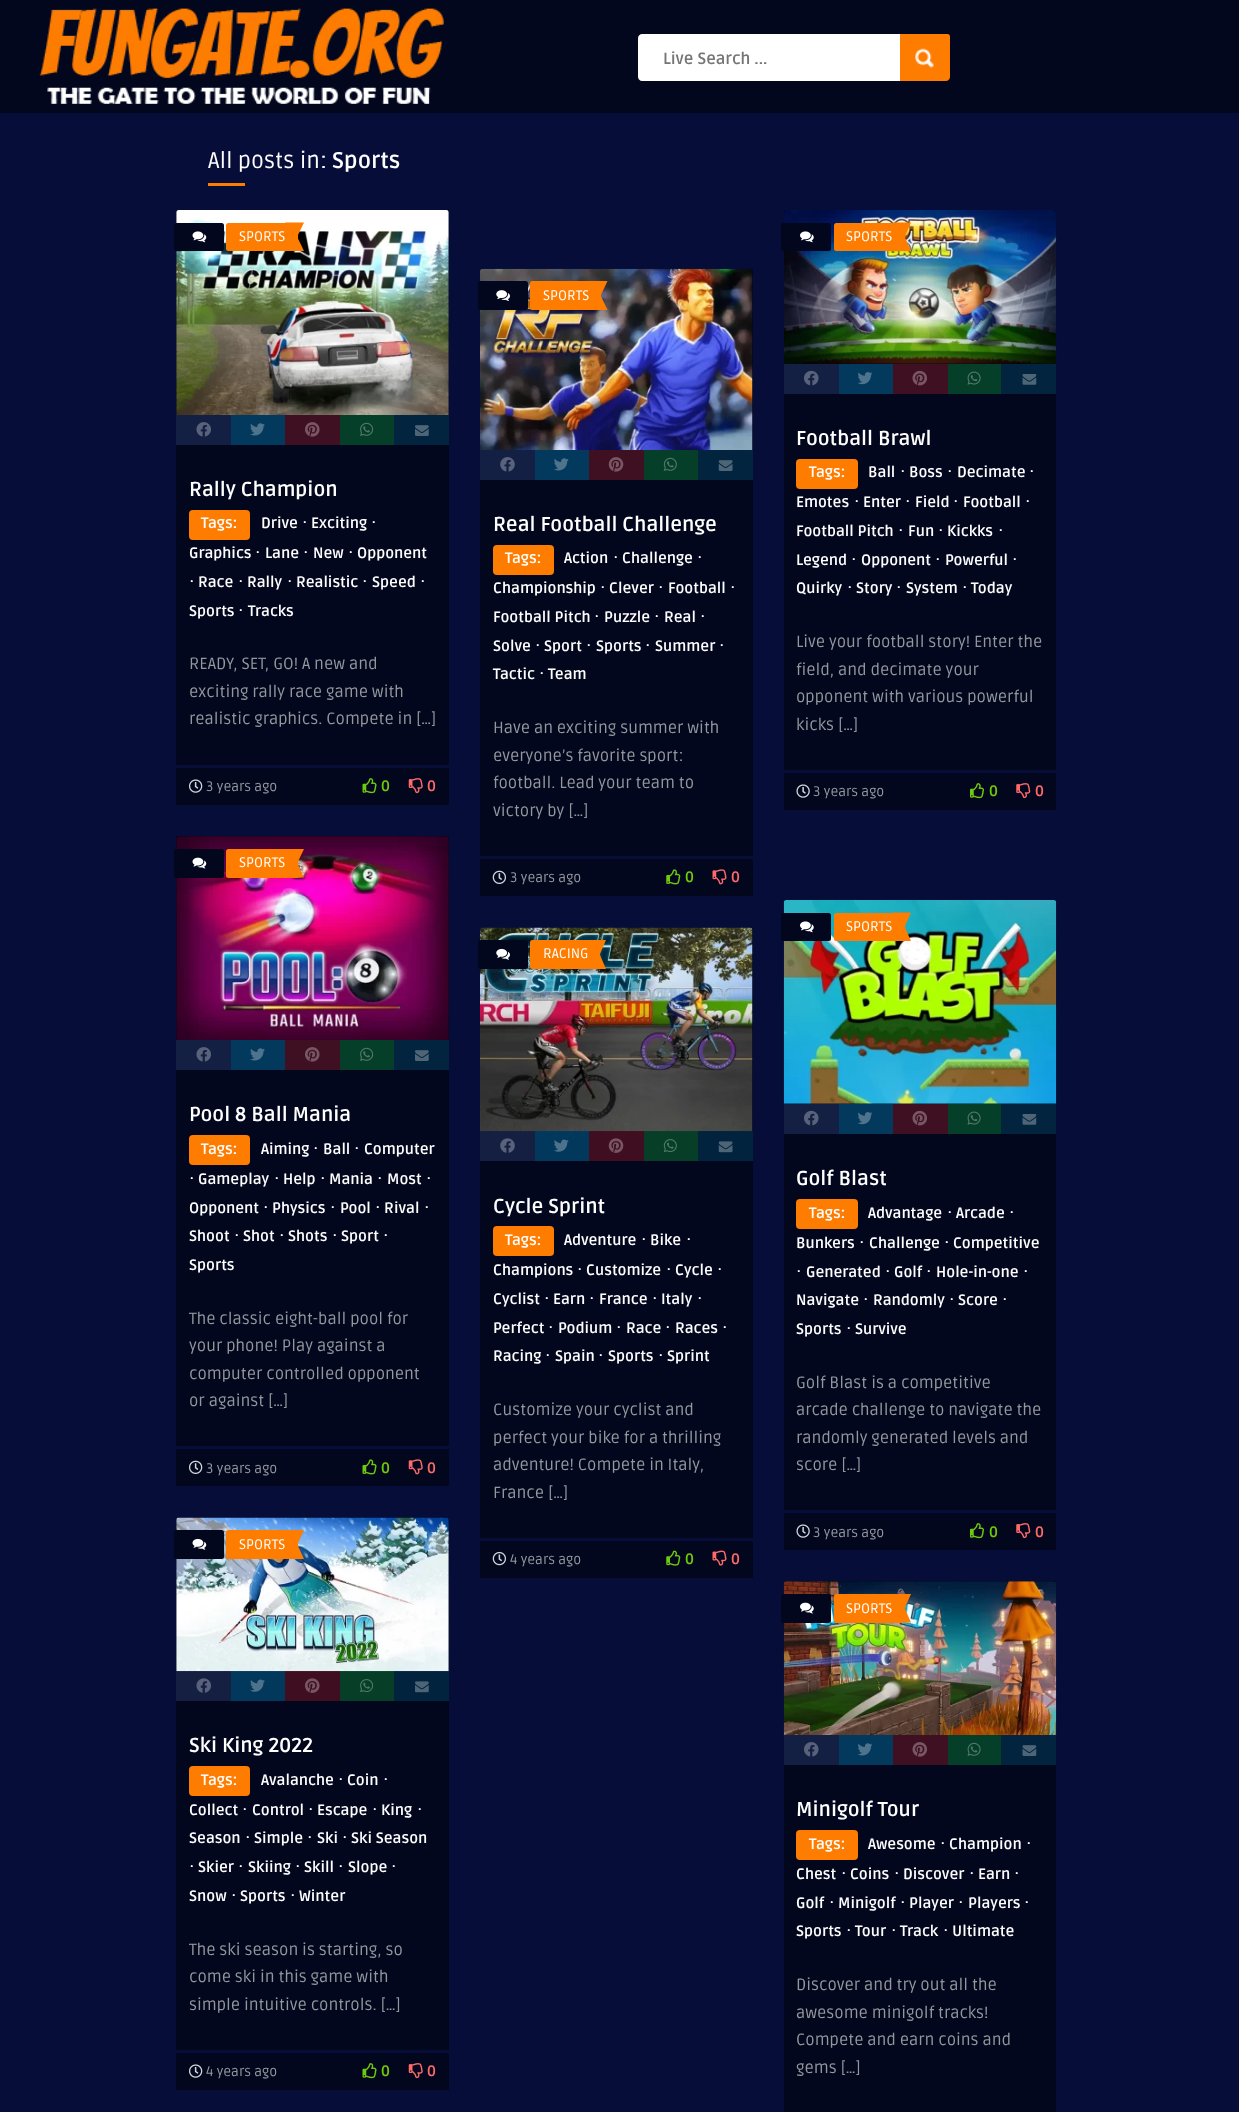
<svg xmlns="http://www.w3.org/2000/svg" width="1239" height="2112">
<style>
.a{font:bold 16.25px Ruda;fill:#757575}
.b{font:22.5px Ruda;fill:#fff}
.c{font:bold 22.5px Ruda;fill:#fff}
.d{font:13.75px Ruda;fill:#fff}
.e{font:bold 20px Ruda;fill:#fff}
.f{font:bold 15px Ruda;fill:#fff}
.g{font:18px Ruda;fill:#fff}
.h{font:16.25px Ruda;fill:#94979c}
.i{font:13.75px Ruda;fill:#94979c}
.j{font:bold 15px Ruda;fill:#6ecb0a}
.k{font:bold 15px Ruda;fill:#fe6969}
</style>
<rect width="100%" height="100%" fill="#060d38"/>
<path fill="#03071e" d="M0 0h1239v113H0z"/>
<image href="1.png" x="39" y="8" width="405" height="96"/>
<path fill="#fff" d="M642 34h258v47h-258c-2 0-4-2-4-4v-39c0-2 2-4 4-4z"/>
<path fill="#fe7c00" d="M900 34h47.5c1.5 0 2.5 1 2.5 2.5v40.5c0 2-2 4-4 4h-46z"/>
<image href="2.png" x="915" y="48" width="19" height="20"/>
<path fill="#fe7c00" d="M208 183h37v3H208z"/>
<path fill="#03071e" d="M176 210h273v595H176z"/>
<image href="3.png" x="176" y="210" width="273" height="205"/>
<rect fill="#03071e" x="174" y="223" width="50" height="28" rx="2.5"/>
<image href="4.png" x="192" y="231" width="15" height="12"/>
<rect fill="#fe7c00" x="226" y="223" width="72" height="28" rx="2.5"/>
<path fill="#fe7c00" d="M285 222.5h19l-6.5 13.5zm19 28.5h-19l12.5-13.5z"/>
<path fill="#142043" d="M176 415h55v30H176z"/>
<image href="5.png" x="196" y="422" width="15" height="15"/>
<path fill="#02395c" d="M231 415h54v30H231z"/>
<image href="6.png" x="250" y="423" width="15" height="13"/>
<path fill="#3f0f22" d="M285 415h55v30H285z"/>
<image href="7.png" x="305" y="422" width="15" height="15"/>
<path fill="#063f29" d="M340 415h54v30H340z"/>
<image href="8.png" x="360" y="422" width="14" height="14"/>
<path fill="#02243e" d="M394 415h55v30H394z"/>
<image href="9.png" x="415" y="425" width="14" height="11"/>
<rect fill="#fe7c00" x="189" y="510" width="61" height="30" rx="4"/>
<path fill="#060d38" d="M176 765h273v3H176z"/>
<image href="10.png" x="189" y="779" width="14" height="14"/>
<image href="11.png" x="362" y="778" width="15" height="16"/>
<image href="12.png" x="408" y="778" width="15" height="16"/>
<path fill="#03071e" d="M480 269h273v627H480z"/>
<image href="13.png" x="480" y="268" width="273" height="182"/>
<rect fill="#03071e" x="478" y="281" width="50" height="29" rx="2.5"/>
<image href="14.png" x="496" y="290" width="14" height="11"/>
<rect fill="#fe7c00" x="530" y="281" width="71" height="29" rx="2.5"/>
<path fill="#fe7c00" d="M589 281h18.5l-6.5 14zm18.5 29h-18.5l12-14z"/>
<path fill="#142043" d="M480 450h55v30H480z"/>
<image href="15.png" x="500" y="457" width="15" height="15"/>
<path fill="#02395c" d="M535 450h54v30H535z"/>
<image href="16.png" x="554" y="458" width="15" height="13"/>
<path fill="#3f0f22" d="M589 450h55v30H589z"/>
<image href="17.png" x="608" y="457" width="16" height="15"/>
<path fill="#063f29" d="M644 450h54v30H644z"/>
<image href="18.png" x="663" y="457" width="14" height="14"/>
<path fill="#02243e" d="M698 450h55v30H698z"/>
<image href="19.png" x="718" y="460" width="15" height="11"/>
<rect fill="#fe7c00" x="493" y="545" width="61" height="30" rx="4"/>
<path fill="#060d38" d="M480 856h273v3H480z"/>
<image href="20.png" x="492" y="870" width="14" height="14"/>
<image href="21.png" x="666" y="869" width="15" height="16"/>
<image href="22.png" x="712" y="869" width="15" height="16"/>
<path fill="#03071e" d="M784 210h272v600H784z"/>
<image href="23.png" x="784" y="210" width="273" height="154"/>
<rect fill="#03071e" x="781" y="223" width="50" height="28" rx="2.5"/>
<image href="24.png" x="800" y="231" width="14" height="12"/>
<rect fill="#fe7c00" x="834" y="223" width="71" height="28" rx="2.5"/>
<path fill="#fe7c00" d="M892.5 222.5h18.5l-6 13.5zm18.5 28.5h-18.5l12.5-13.5z"/>
<path fill="#142043" d="M784 364h55v30H784z"/>
<image href="25.png" x="804" y="370" width="15" height="16"/>
<path fill="#02395c" d="M839 364h54v30H839z"/>
<image href="26.png" x="858" y="372" width="15" height="13"/>
<path fill="#3f0f22" d="M893 364h55v30H893z"/>
<image href="27.png" x="912" y="370" width="15" height="16"/>
<path fill="#063f29" d="M948 364h53v30H948z"/>
<image href="28.png" x="967" y="371" width="14" height="14"/>
<path fill="#02243e" d="M1001 364h55v30H1001z"/>
<image href="29.png" x="1022" y="374" width="15" height="11"/>
<rect fill="#fe7c00" x="796" y="459" width="62" height="30" rx="4"/>
<path fill="#060d38" d="M784 770h272v3H784z"/>
<image href="30.png" x="796" y="784" width="14" height="14"/>
<image href="31.png" x="970" y="783" width="14" height="16"/>
<image href="32.png" x="1016" y="783" width="15" height="16"/>
<path fill="#03071e" d="M176 836h273v650H176z"/>
<image href="33.png" x="176" y="836" width="273" height="204"/>
<rect fill="#03071e" x="174" y="849" width="50" height="29" rx="2.5"/>
<image href="34.png" x="192" y="857" width="15" height="12"/>
<rect fill="#fe7c00" x="226" y="849" width="72" height="29" rx="2.5"/>
<path fill="#fe7c00" d="M285 849h19l-6.5 13.5zm19 28.5h-19l12.5-13.5z"/>
<path fill="#fe7c00" d="M296 877h2v1H296z"/>
<path fill="#142043" d="M176 1040h55v30H176z"/>
<image href="5.png" x="196" y="1047" width="15" height="15"/>
<path fill="#02395c" d="M231 1040h54v30H231z"/>
<image href="6.png" x="250" y="1048" width="15" height="13"/>
<path fill="#3f0f22" d="M285 1040h55v30H285z"/>
<image href="7.png" x="305" y="1047" width="15" height="15"/>
<path fill="#063f29" d="M340 1040h54v30H340z"/>
<image href="8.png" x="360" y="1047" width="14" height="14"/>
<path fill="#02243e" d="M394 1040h55v30H394z"/>
<image href="9.png" x="415" y="1050" width="14" height="11"/>
<rect fill="#fe7c00" x="189" y="1135" width="61" height="30" rx="4"/>
<path fill="#060d38" d="M176 1446h273v3H176z"/>
<image href="35.png" x="189" y="1460" width="14" height="14"/>
<image href="36.png" x="362" y="1459" width="15" height="16"/>
<image href="37.png" x="408" y="1459" width="15" height="16"/>
<path fill="#03071e" d="M480 928h273v650H480z"/>
<image href="38.png" x="480" y="927" width="273" height="205"/>
<rect fill="#03071e" x="478" y="940" width="50" height="29" rx="2.5"/>
<image href="39.png" x="496" y="948" width="14" height="12"/>
<rect fill="#fe7c00" x="530" y="940" width="70" height="29" rx="2.5"/>
<path fill="#fe7c00" d="M587.5 940h18.5l-6 14zm18.5 29h-18.5l12.5-14z"/>
<path fill="#3b59984d" d="M480 1131h55v30H480z"/>
<image href="40.png" x="500" y="1138" width="15" height="15"/>
<path fill="#00aced4d" d="M535 1131h54v30H535z"/>
<image href="41.png" x="554" y="1139" width="15" height="13"/>
<path fill="#ca212a4d" d="M589 1131h55v30H589z"/>
<image href="42.png" x="608" y="1138" width="16" height="15"/>
<path fill="#0dc1434d" d="M644 1131h54v30H644z"/>
<image href="43.png" x="663" y="1139" width="14" height="13"/>
<path fill="#00688a4d" d="M698 1131h55v30H698z"/>
<image href="44.png" x="718" y="1141" width="15" height="12"/>
<rect fill="#fe7c00" x="493" y="1226" width="61" height="30" rx="4"/>
<path fill="#060d38" d="M480 1538h273v3H480z"/>
<image href="45.png" x="492" y="1551" width="14" height="15"/>
<image href="46.png" x="666" y="1550" width="15" height="16"/>
<image href="47.png" x="712" y="1550" width="15" height="16"/>
<path fill="#03071e" d="M784 900h272v650H784z"/>
<image href="48.png" x="783" y="900" width="274" height="204"/>
<rect fill="#03071e" x="781" y="913" width="50" height="28" rx="2.5"/>
<image href="24.png" x="800" y="921" width="14" height="12"/>
<rect fill="#fe7c00" x="834" y="913" width="71" height="28" rx="2.5"/>
<path fill="#fe7c00" d="M892.5 912.5h18.5l-6 13.5zm18.5 28.5h-18.5l12.5-13.5z"/>
<path fill="#142043" d="M784 1104h55v30H784z"/>
<image href="25.png" x="804" y="1110" width="15" height="16"/>
<path fill="#02395c" d="M839 1104h54v30H839z"/>
<image href="26.png" x="858" y="1112" width="15" height="13"/>
<path fill="#3f0f22" d="M893 1104h55v30H893z"/>
<image href="27.png" x="912" y="1110" width="15" height="16"/>
<path fill="#063f29" d="M948 1104h53v30H948z"/>
<image href="28.png" x="967" y="1111" width="14" height="14"/>
<path fill="#02243e" d="M1001 1104h55v30H1001z"/>
<image href="29.png" x="1022" y="1114" width="15" height="11"/>
<rect fill="#fe7c00" x="796" y="1199" width="62" height="30" rx="4"/>
<path fill="#060d38" d="M784 1510h272v3H784z"/>
<image href="30.png" x="796" y="1524" width="14" height="14"/>
<image href="31.png" x="970" y="1523" width="14" height="16"/>
<image href="32.png" x="1016" y="1523" width="15" height="16"/>
<path fill="#03071e" d="M176 1518h273v572H176z"/>
<image href="49.png" x="176" y="1517" width="273" height="155"/>
<rect fill="#03071e" x="174" y="1530" width="50" height="29" rx="2.5"/>
<image href="50.png" x="192" y="1538" width="15" height="12"/>
<rect fill="#fe7c00" x="226" y="1530" width="72" height="29" rx="2.5"/>
<path fill="#fe7c00" d="M285 1530h19l-6.5 14zm19 29h-19l12.5-14z"/>
<path fill="#3b59984d" d="M176 1671h55v30H176z"/>
<image href="51.png" x="196" y="1678" width="15" height="15"/>
<path fill="#00aced4d" d="M231 1671h54v30H231z"/>
<image href="52.png" x="250" y="1679" width="15" height="13"/>
<path fill="#ca212a4d" d="M285 1671h55v30H285z"/>
<image href="53.png" x="305" y="1678" width="15" height="15"/>
<path fill="#0dc1434d" d="M340 1671h54v30H340z"/>
<image href="54.png" x="360" y="1679" width="14" height="13"/>
<path fill="#00688a4d" d="M394 1671h55v30H394z"/>
<image href="55.png" x="415" y="1681" width="14" height="12"/>
<rect fill="#fe7c00" x="189" y="1766" width="61" height="30" rx="4"/>
<path fill="#060d38" d="M176 2050h273v3H176z"/>
<image href="10.png" x="189" y="2064" width="14" height="14"/>
<image href="11.png" x="362" y="2063" width="15" height="16"/>
<image href="12.png" x="408" y="2063" width="15" height="16"/>
<path fill="#03071e" d="M784 1581h272v531H784z"/>
<image href="56.png" x="783" y="1581" width="274" height="154"/>
<rect fill="#03071e" x="781" y="1594" width="50" height="29" rx="2.5"/>
<image href="57.png" x="800" y="1602" width="14" height="12"/>
<rect fill="#fe7c00" x="834" y="1594" width="71" height="29" rx="2.5"/>
<path fill="#fe7c00" d="M892.5 1594h18.5l-6 13.5zm18.5 28.5h-18.5l12.5-13.5z"/>
<path fill="#fe7c00" d="M903 1622h2v1H903z"/>
<path fill="#142043" d="M784 1735h55v30H784z"/>
<image href="58.png" x="804" y="1742" width="15" height="15"/>
<path fill="#02395c" d="M839 1735h54v30H839z"/>
<image href="59.png" x="858" y="1743" width="15" height="13"/>
<path fill="#3f0f22" d="M893 1735h55v30H893z"/>
<image href="60.png" x="912" y="1742" width="15" height="15"/>
<path fill="#063f29" d="M948 1735h53v30H948z"/>
<image href="61.png" x="967" y="1742" width="14" height="14"/>
<path fill="#02243e" d="M1001 1735h55v30H1001z"/>
<image href="62.png" x="1022" y="1745" width="15" height="11"/>
<rect fill="#fe7c00" x="796" y="1830" width="62" height="30" rx="4"/>
<text class="a" x="663" y="64">Live Search ...</text>
<text class="b" x="208" y="168">All posts in:</text>
<text class="c" x="332" y="168">Sports</text>
<text class="d" x="239" y="241">SPORTS</text>
<text class="e" x="189" y="496">Rally Champion</text>
<text class="f" x="201" y="528">Tags:</text>
<text class="f" x="261" y="528">Drive</text>
<text class="g" x="302" y="528">·</text>
<text class="f" x="311" y="528">Exciting</text>
<text class="g" x="371" y="528">·</text>
<text class="f" x="189" y="558">Graphics</text>
<text class="g" x="255" y="558">·</text>
<text class="f" x="265" y="558">Lane</text>
<text class="g" x="303" y="558">·</text>
<text class="f" x="313" y="558">New</text>
<text class="g" x="348" y="558">·</text>
<text class="f" x="357" y="558">Opponent</text>
<text class="g" x="189" y="587">·</text>
<text class="f" x="198" y="587">Race</text>
<text class="g" x="238" y="587">·</text>
<text class="f" x="247" y="587">Rally</text>
<text class="g" x="287" y="587">·</text>
<text class="f" x="296" y="587">Realistic</text>
<text class="g" x="362" y="587">·</text>
<text class="f" x="372" y="587">Speed</text>
<text class="g" x="420" y="587">·</text>
<text class="f" x="189" y="616">Sports</text>
<text class="g" x="238" y="616">·</text>
<text class="f" x="248" y="616">Tracks</text>
<text class="h" x="189" y="669">READY, SET, GO! A new and</text>
<text class="h" x="189" y="697">exciting rally race game with</text>
<text class="h" x="189" y="724">realistic graphics. Compete in […]</text>
<text class="i" x="206" y="791">3 years ago</text>
<text class="j" x="381" y="791">0</text>
<text class="k" x="427" y="791">0</text>
<text class="d" x="543" y="300">SPORTS</text>
<text class="e" x="493" y="531">Real Football Challenge</text>
<text class="f" x="505" y="563">Tags:</text>
<text class="f" x="564" y="563">Action</text>
<text class="g" x="613" y="563">·</text>
<text class="f" x="622" y="563">Challenge</text>
<text class="g" x="697" y="563">·</text>
<text class="f" x="493" y="593">Championship</text>
<text class="g" x="600" y="593">·</text>
<text class="f" x="609" y="593">Clever</text>
<text class="g" x="658" y="593">·</text>
<text class="f" x="668" y="593">Football</text>
<text class="g" x="730" y="593">·</text>
<text class="f" x="493" y="622">Football Pitch</text>
<text class="g" x="594" y="622">·</text>
<text class="f" x="604" y="622">Puzzle</text>
<text class="g" x="654" y="622">·</text>
<text class="f" x="664" y="622">Real</text>
<text class="g" x="700" y="622">·</text>
<text class="f" x="493" y="651">Solve</text>
<text class="g" x="535" y="651">·</text>
<text class="f" x="544" y="651">Sport</text>
<text class="g" x="586" y="651">·</text>
<text class="f" x="596" y="651">Sports</text>
<text class="g" x="645" y="651">·</text>
<text class="f" x="655" y="651">Summer</text>
<text class="g" x="719" y="651">·</text>
<text class="f" x="493" y="679">Tactic</text>
<text class="g" x="539" y="679">·</text>
<text class="f" x="548" y="679">Team</text>
<text class="h" x="493" y="733">Have an exciting summer with</text>
<text class="h" x="493" y="761">everyone’s favorite sport:</text>
<text class="h" x="493" y="788">football. Lead your team to</text>
<text class="h" x="493" y="816">victory by […]</text>
<text class="i" x="510" y="882">3 years ago</text>
<text class="j" x="685" y="882">0</text>
<text class="k" x="731" y="882">0</text>
<text class="d" x="846" y="241">SPORTS</text>
<text class="e" x="796" y="445">Football Brawl</text>
<text class="f" x="809" y="477">Tags:</text>
<text class="f" x="868" y="477">Ball</text>
<text class="g" x="900" y="477">·</text>
<text class="f" x="909" y="477">Boss</text>
<text class="g" x="947" y="477">·</text>
<text class="f" x="957" y="477">Decimate</text>
<text class="g" x="1029" y="477">·</text>
<text class="f" x="796" y="507">Emotes</text>
<text class="g" x="854" y="507">·</text>
<text class="f" x="863" y="507">Enter</text>
<text class="g" x="905" y="507">·</text>
<text class="f" x="915" y="507">Field</text>
<text class="g" x="953" y="507">·</text>
<text class="f" x="963" y="507">Football</text>
<text class="g" x="1025" y="507">·</text>
<text class="f" x="796" y="536">Football Pitch</text>
<text class="g" x="898" y="536">·</text>
<text class="f" x="908" y="536">Fun</text>
<text class="g" x="938" y="536">·</text>
<text class="f" x="947" y="536">Kickks</text>
<text class="g" x="998" y="536">·</text>
<text class="f" x="796" y="565">Legend</text>
<text class="g" x="851" y="565">·</text>
<text class="f" x="861" y="565">Opponent</text>
<text class="g" x="935" y="565">·</text>
<text class="f" x="945" y="565">Powerful</text>
<text class="g" x="1012" y="565">·</text>
<text class="f" x="796" y="593">Quirky</text>
<text class="g" x="847" y="593">·</text>
<text class="f" x="856" y="593">Story</text>
<text class="g" x="896" y="593">·</text>
<text class="f" x="906" y="593">System</text>
<text class="g" x="962" y="593">·</text>
<text class="f" x="971" y="593">Today</text>
<text class="h" x="796" y="647">Live your football story! Enter the</text>
<text class="h" x="796" y="675">field, and decimate your</text>
<text class="h" x="796" y="702">opponent with various powerful</text>
<text class="h" x="796" y="730">kicks […]</text>
<text class="i" x="813" y="796">3 years ago</text>
<text class="j" x="989" y="796">0</text>
<text class="k" x="1035" y="796">0</text>
<text class="d" x="239" y="867">SPORTS</text>
<text class="e" x="189" y="1121">Pool 8 Ball Mania</text>
<text class="f" x="201" y="1154">Tags:</text>
<text class="f" x="261" y="1154">Aiming</text>
<text class="g" x="313" y="1154">·</text>
<text class="f" x="323" y="1154">Ball</text>
<text class="g" x="354" y="1154">·</text>
<text class="f" x="364" y="1154">Computer</text>
<text class="g" x="189" y="1184">·</text>
<text class="f" x="198" y="1184">Gameplay</text>
<text class="g" x="274" y="1184">·</text>
<text class="f" x="283" y="1184">Help</text>
<text class="g" x="320" y="1184">·</text>
<text class="f" x="329" y="1184">Mania</text>
<text class="g" x="377" y="1184">·</text>
<text class="f" x="387" y="1184">Most</text>
<text class="g" x="426" y="1184">·</text>
<text class="f" x="189" y="1213">Opponent</text>
<text class="g" x="263" y="1213">·</text>
<text class="f" x="272" y="1213">Physics</text>
<text class="g" x="330" y="1213">·</text>
<text class="f" x="340" y="1213">Pool</text>
<text class="g" x="375" y="1213">·</text>
<text class="f" x="384" y="1213">Rival</text>
<text class="g" x="424" y="1213">·</text>
<text class="f" x="189" y="1241">Shoot</text>
<text class="g" x="234" y="1241">·</text>
<text class="f" x="243" y="1241">Shot</text>
<text class="g" x="279" y="1241">·</text>
<text class="f" x="288" y="1241">Shots</text>
<text class="g" x="332" y="1241">·</text>
<text class="f" x="341" y="1241">Sport</text>
<text class="g" x="383" y="1241">·</text>
<text class="f" x="189" y="1270">Sports</text>
<text class="h" x="189" y="1324">The classic eight-ball pool for</text>
<text class="h" x="189" y="1351">your phone! Play against a</text>
<text class="h" x="189" y="1379">computer controlled opponent</text>
<text class="h" x="189" y="1406">or against […]</text>
<text class="i" x="206" y="1473">3 years ago</text>
<text class="j" x="381" y="1473">0</text>
<text class="k" x="427" y="1473">0</text>
<text class="d" x="543" y="958">RACING</text>
<text class="e" x="493" y="1213">Cycle Sprint</text>
<text class="f" x="505" y="1245">Tags:</text>
<text class="f" x="564" y="1245">Adventure</text>
<text class="g" x="641" y="1245">·</text>
<text class="f" x="650" y="1245">Bike</text>
<text class="g" x="686" y="1245">·</text>
<text class="f" x="493" y="1275">Champions</text>
<text class="g" x="577" y="1275">·</text>
<text class="f" x="586" y="1275">Customize</text>
<text class="g" x="666" y="1275">·</text>
<text class="f" x="675" y="1275">Cycle</text>
<text class="g" x="717" y="1275">·</text>
<text class="f" x="493" y="1304">Cyclist</text>
<text class="g" x="544" y="1304">·</text>
<text class="f" x="553" y="1304">Earn</text>
<text class="g" x="589" y="1304">·</text>
<text class="f" x="599" y="1304">France</text>
<text class="g" x="652" y="1304">·</text>
<text class="f" x="661" y="1304">Italy</text>
<text class="g" x="697" y="1304">·</text>
<text class="f" x="493" y="1333">Perfect</text>
<text class="g" x="548" y="1333">·</text>
<text class="f" x="558" y="1333">Podium</text>
<text class="g" x="616" y="1333">·</text>
<text class="f" x="626" y="1333">Race</text>
<text class="g" x="665" y="1333">·</text>
<text class="f" x="675" y="1333">Races</text>
<text class="g" x="722" y="1333">·</text>
<text class="f" x="493" y="1361">Racing</text>
<text class="g" x="545" y="1361">·</text>
<text class="f" x="555" y="1361">Spain</text>
<text class="g" x="598" y="1361">·</text>
<text class="f" x="608" y="1361">Sports</text>
<text class="g" x="658" y="1361">·</text>
<text class="f" x="667" y="1361">Sprint</text>
<text class="h" x="493" y="1415">Customize your cyclist and</text>
<text class="h" x="493" y="1443">perfect your bike for a thrilling</text>
<text class="h" x="493" y="1470">adventure! Compete in Italy,</text>
<text class="h" x="493" y="1498">France […]</text>
<text class="i" x="510" y="1564">4 years ago</text>
<text class="j" x="685" y="1564">0</text>
<text class="k" x="731" y="1564">0</text>
<text class="d" x="846" y="931">SPORTS</text>
<text class="e" x="796" y="1185">Golf Blast</text>
<text class="f" x="809" y="1218">Tags:</text>
<text class="f" x="868" y="1218">Advantage</text>
<text class="g" x="947" y="1218">·</text>
<text class="f" x="956" y="1218">Arcade</text>
<text class="g" x="1009" y="1218">·</text>
<text class="f" x="796" y="1248">Bunkers</text>
<text class="g" x="859" y="1248">·</text>
<text class="f" x="869" y="1248">Challenge</text>
<text class="g" x="944" y="1248">·</text>
<text class="f" x="953" y="1248">Competitive</text>
<text class="g" x="796" y="1277">·</text>
<text class="f" x="806" y="1277">Generated</text>
<text class="g" x="885" y="1277">·</text>
<text class="f" x="894" y="1277">Golf</text>
<text class="g" x="926" y="1277">·</text>
<text class="f" x="936" y="1277">Hole-in-one</text>
<text class="g" x="1023" y="1277">·</text>
<text class="f" x="796" y="1305">Navigate</text>
<text class="g" x="863" y="1305">·</text>
<text class="f" x="873" y="1305">Randomly</text>
<text class="g" x="949" y="1305">·</text>
<text class="f" x="958" y="1305">Score</text>
<text class="g" x="1002" y="1305">·</text>
<text class="f" x="796" y="1334">Sports</text>
<text class="g" x="846" y="1334">·</text>
<text class="f" x="855" y="1334">Survive</text>
<text class="h" x="796" y="1388">Golf Blast is a competitive</text>
<text class="h" x="796" y="1415">arcade challenge to navigate the</text>
<text class="h" x="796" y="1443">randomly generated levels and</text>
<text class="h" x="796" y="1470">score […]</text>
<text class="i" x="813" y="1537">3 years ago</text>
<text class="j" x="989" y="1537">0</text>
<text class="k" x="1035" y="1537">0</text>
<text class="d" x="239" y="1549">SPORTS</text>
<text class="e" x="189" y="1752">Ski King 2022</text>
<text class="f" x="201" y="1785">Tags:</text>
<text class="f" x="261" y="1785">Avalanche</text>
<text class="g" x="338" y="1785">·</text>
<text class="f" x="347" y="1785">Coin</text>
<text class="g" x="383" y="1785">·</text>
<text class="f" x="189" y="1815">Collect</text>
<text class="g" x="242" y="1815">·</text>
<text class="f" x="252" y="1815">Control</text>
<text class="g" x="308" y="1815">·</text>
<text class="f" x="317" y="1815">Escape</text>
<text class="g" x="372" y="1815">·</text>
<text class="f" x="381" y="1815">King</text>
<text class="g" x="417" y="1815">·</text>
<text class="f" x="189" y="1843">Season</text>
<text class="g" x="245" y="1843">·</text>
<text class="f" x="254" y="1843">Simple</text>
<text class="g" x="307" y="1843">·</text>
<text class="f" x="317" y="1843">Ski</text>
<text class="g" x="342" y="1843">·</text>
<text class="f" x="351" y="1843">Ski Season</text>
<text class="g" x="189" y="1872">·</text>
<text class="f" x="198" y="1872">Skier</text>
<text class="g" x="238" y="1872">·</text>
<text class="f" x="248" y="1872">Skiing</text>
<text class="g" x="295" y="1872">·</text>
<text class="f" x="304" y="1872">Skill</text>
<text class="g" x="338" y="1872">·</text>
<text class="f" x="348" y="1872">Slope</text>
<text class="g" x="391" y="1872">·</text>
<text class="f" x="189" y="1901">Snow</text>
<text class="g" x="231" y="1901">·</text>
<text class="f" x="240" y="1901">Sports</text>
<text class="g" x="290" y="1901">·</text>
<text class="f" x="299" y="1901">Winter</text>
<text class="h" x="189" y="1955">The ski season is starting, so</text>
<text class="h" x="189" y="1982">come ski in this game with</text>
<text class="h" x="189" y="2010">simple intuitive controls. […]</text>
<text class="i" x="206" y="2076">4 years ago</text>
<text class="j" x="381" y="2076">0</text>
<text class="k" x="427" y="2076">0</text>
<text class="d" x="846" y="1613">SPORTS</text>
<text class="e" x="796" y="1816">Minigolf Tour</text>
<text class="f" x="809" y="1849">Tags:</text>
<text class="f" x="868" y="1849">Awesome</text>
<text class="g" x="940" y="1849">·</text>
<text class="f" x="949" y="1849">Champion</text>
<text class="g" x="1026" y="1849">·</text>
<text class="f" x="796" y="1879">Chest</text>
<text class="g" x="841" y="1879">·</text>
<text class="f" x="850" y="1879">Coins</text>
<text class="g" x="894" y="1879">·</text>
<text class="f" x="903" y="1879">Discover</text>
<text class="g" x="969" y="1879">·</text>
<text class="f" x="978" y="1879">Earn</text>
<text class="g" x="1014" y="1879">·</text>
<text class="f" x="796" y="1908">Golf</text>
<text class="g" x="829" y="1908">·</text>
<text class="f" x="838" y="1908">Minigolf</text>
<text class="g" x="900" y="1908">·</text>
<text class="f" x="909" y="1908">Player</text>
<text class="g" x="958" y="1908">·</text>
<text class="f" x="968" y="1908">Players</text>
<text class="g" x="1024" y="1908">·</text>
<text class="f" x="796" y="1936">Sports</text>
<text class="g" x="846" y="1936">·</text>
<text class="f" x="855" y="1936">Tour</text>
<text class="g" x="891" y="1936">·</text>
<text class="f" x="900" y="1936">Track</text>
<text class="g" x="943" y="1936">·</text>
<text class="f" x="952" y="1936">Ultimate</text>
<text class="h" x="796" y="1990">Discover and try out all the</text>
<text class="h" x="796" y="2018">awesome minigolf tracks!</text>
<text class="h" x="796" y="2045">Compete and earn coins and</text>
<text class="h" x="796" y="2073">gems […]</text>
</svg>
